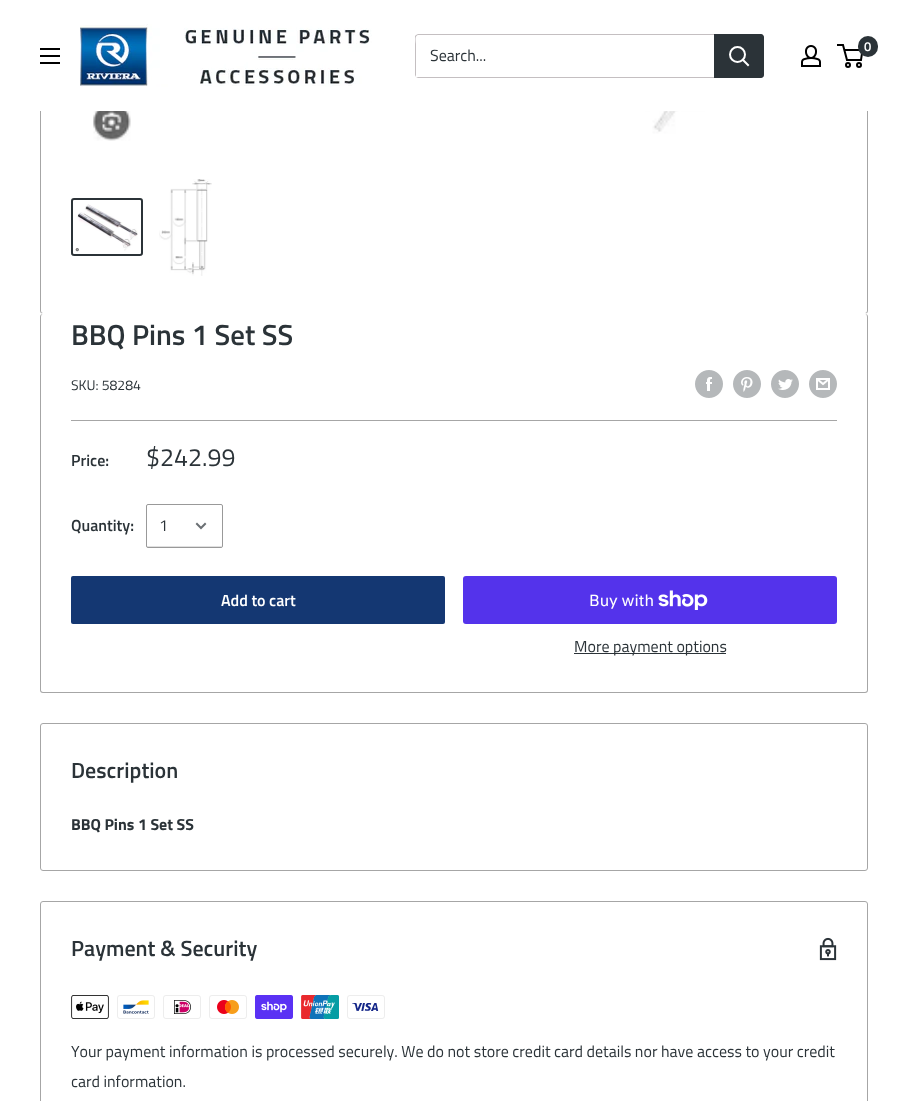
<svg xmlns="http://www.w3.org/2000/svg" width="908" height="1101">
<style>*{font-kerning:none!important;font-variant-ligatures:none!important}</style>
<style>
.a{font:600 13px Titillium Web;fill:#fff}
.b{font:16px Titillium Web;fill:#2b3338}
.c{font:600 29px Titillium Web;fill:#2b3338}
.d{font:14px Titillium Web;fill:#2b3338}
.e{font:600 16px Titillium Web;fill:#2b3338}
.f{font:25px Titillium Web;fill:#2b3338}
.g{font:600 16px Titillium Web;fill:#fff}
.h{font:16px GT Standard;fill:#fff}
.i{font:600 22px Titillium Web;fill:#2b3338}
.j{font:bold 16px Titillium Web;fill:#2b3338}
</style>
<rect width="100%" height="100%" fill="#fff"/>
<rect fill="none" stroke="#a6a6a6" x="40.5" y="-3.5" width="827" height="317" rx="2.5"/>
<path fill="#fff" d="M40 0h828v111H40z"/>
<image href="1.png" x="80" y="24" width="292" height="63"/>
<image href="2.png" x="801" y="45" width="20" height="22"/>
<circle fill="none" stroke="#000" stroke-width="2" cx="848" cy="65" r="2"/>
<circle fill="none" stroke="#000" stroke-width="2" cx="859" cy="65" r="2"/>
<path fill="none" stroke="#000" stroke-width="2" d="M844.5 50h18l-1.5 10h-14l-4-15h-6"/>
<rect fill="#2b3338" x="858" y="36" width="20" height="21" rx="10"/>
<image href="3.png" x="40" y="48" width="20" height="16"/>
<path fill="#c4bfc1" d="M416 77l2 1h343l2-1l1-1v-39l-1-2v33c0 2 2 9-3 9z"/>
<path fill="#c4bfc1" d="M419 35h344l-2-1h-343l-2 1l-1 1v39l1 2v-33c0-2-2-9 3-9z"/>
<path fill="#2b3338" d="M714 34h47c1.5 0 3 1.5 3 3v38c0 1.5-1.5 3-3 3h-47z"/>
<path fill="none" stroke="#fff" stroke-width="2" stroke-linecap="square" d="M748 65l-5-5"/>
<circle fill="none" stroke="#fff" stroke-width="2" cx="737.5" cy="54.5" r="7.5"/>
<image href="4.png" x="93" y="111" width="650" height="30"/>
<rect fill="none" stroke="#2b3338" stroke-width="2" x="72" y="199" width="70" height="56" rx="2"/>
<image href="5.png" x="75" y="204" width="63" height="48"/>
<image href="6.png" x="159" y="179" width="53" height="97"/>
<path fill="#fff" d="M43 313c-2 0-3 2-3 4c0-2 1-3 3-3h822c2 0 3 1 3 3c0-2-1-4-3-4z"/>
<path fill="#a6a6a6" fill-rule="evenodd" d="M43 314h822c2 0 3 1 3 3v373c0 2-1 3-3 3h-822c-2 0-3-1-3-3v-373c0-2 1-3 3-3zm0 0h822c1 0 2 1 2 3v373c0 1-1 2-2 2h-822c-1 0-2-1-2-2v-373c0-2 1-3 2-3z"/>
<image href="7.png" x="695" y="370" width="28" height="28"/>
<image href="8.png" x="733" y="370" width="28" height="28"/>
<image href="9.png" x="771" y="370" width="28" height="28"/>
<image href="10.png" x="809" y="370" width="28" height="28"/>
<path fill="#a6a6a6" d="M71 420h766v1H71z"/>
<path fill="#e0e0e0" d="M147 545c0 1 0 2 1 2h73l1-2c0 1 0 1-1 1h-74z"/>
<rect fill="none" stroke="#999" x="146.5" y="504.5" width="76" height="43" rx="1.5"/>
<path fill="none" stroke="#6b7074" stroke-width="2" stroke-linecap="square" d="M205 524l-4 4l-4-4"/>
<rect fill="#143772" x="71" y="576" width="374" height="48" rx="2"/>
<rect fill="#5433eb" x="463" y="576" width="374" height="48" rx="3"/>
<image href="11.png" x="658" y="590" width="50" height="20"/>
<path fill="#2b3338" d="M574 653h152v1H574z"/>
<rect fill="none" stroke="#a6a6a6" x="40.5" y="723.5" width="827" height="147" rx="2.5"/>
<rect fill="none" stroke="#a6a6a6" x="40.5" y="901.5" width="827" height="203" rx="2.5"/>
<image href="12.png" x="819" y="937" width="18" height="24"/>
<image href="13.png" x="71" y="995" width="38" height="24"/>
<image href="14.png" x="117" y="995" width="38" height="24"/>
<image href="15.png" x="163" y="995" width="38" height="24"/>
<image href="16.png" x="209" y="995" width="38" height="24"/>
<image href="17.png" x="255" y="995" width="38" height="24"/>
<image href="18.png" x="301" y="995" width="38" height="24"/>
<image href="19.png" x="347" y="995" width="38" height="24"/>
<text class="a" x="864" y="51">0</text>
<text class="b" x="430" y="61">Search...</text>
<text class="c" x="71" y="345">BBQ Pins 1 Set SS</text>
<text class="d" x="71" y="390">SKU: 58284</text>
<text class="e" x="71" y="466">Price:</text>
<text class="f" x="146" y="466">$242.99</text>
<text class="e" x="71" y="531">Quantity:</text>
<text class="b" x="159" y="531">1</text>
<text class="g" x="221" y="606">Add to cart</text>
<text class="h" x="589" y="606">Buy with</text>
<text class="b" x="574" y="652">More payment options</text>
<text class="i" x="71" y="778">Description</text>
<text class="j" x="71" y="830">BBQ Pins 1 Set SS</text>
<text class="i" x="71" y="956">Payment &amp; Security</text>
<text class="b" x="71" y="1057">Your payment information is processed securely. We do not store credit card details nor have</text>
<text class="b" x="697" y="1057">access to your credit</text>
<text class="b" x="71" y="1087">card information.</text>
</svg>
